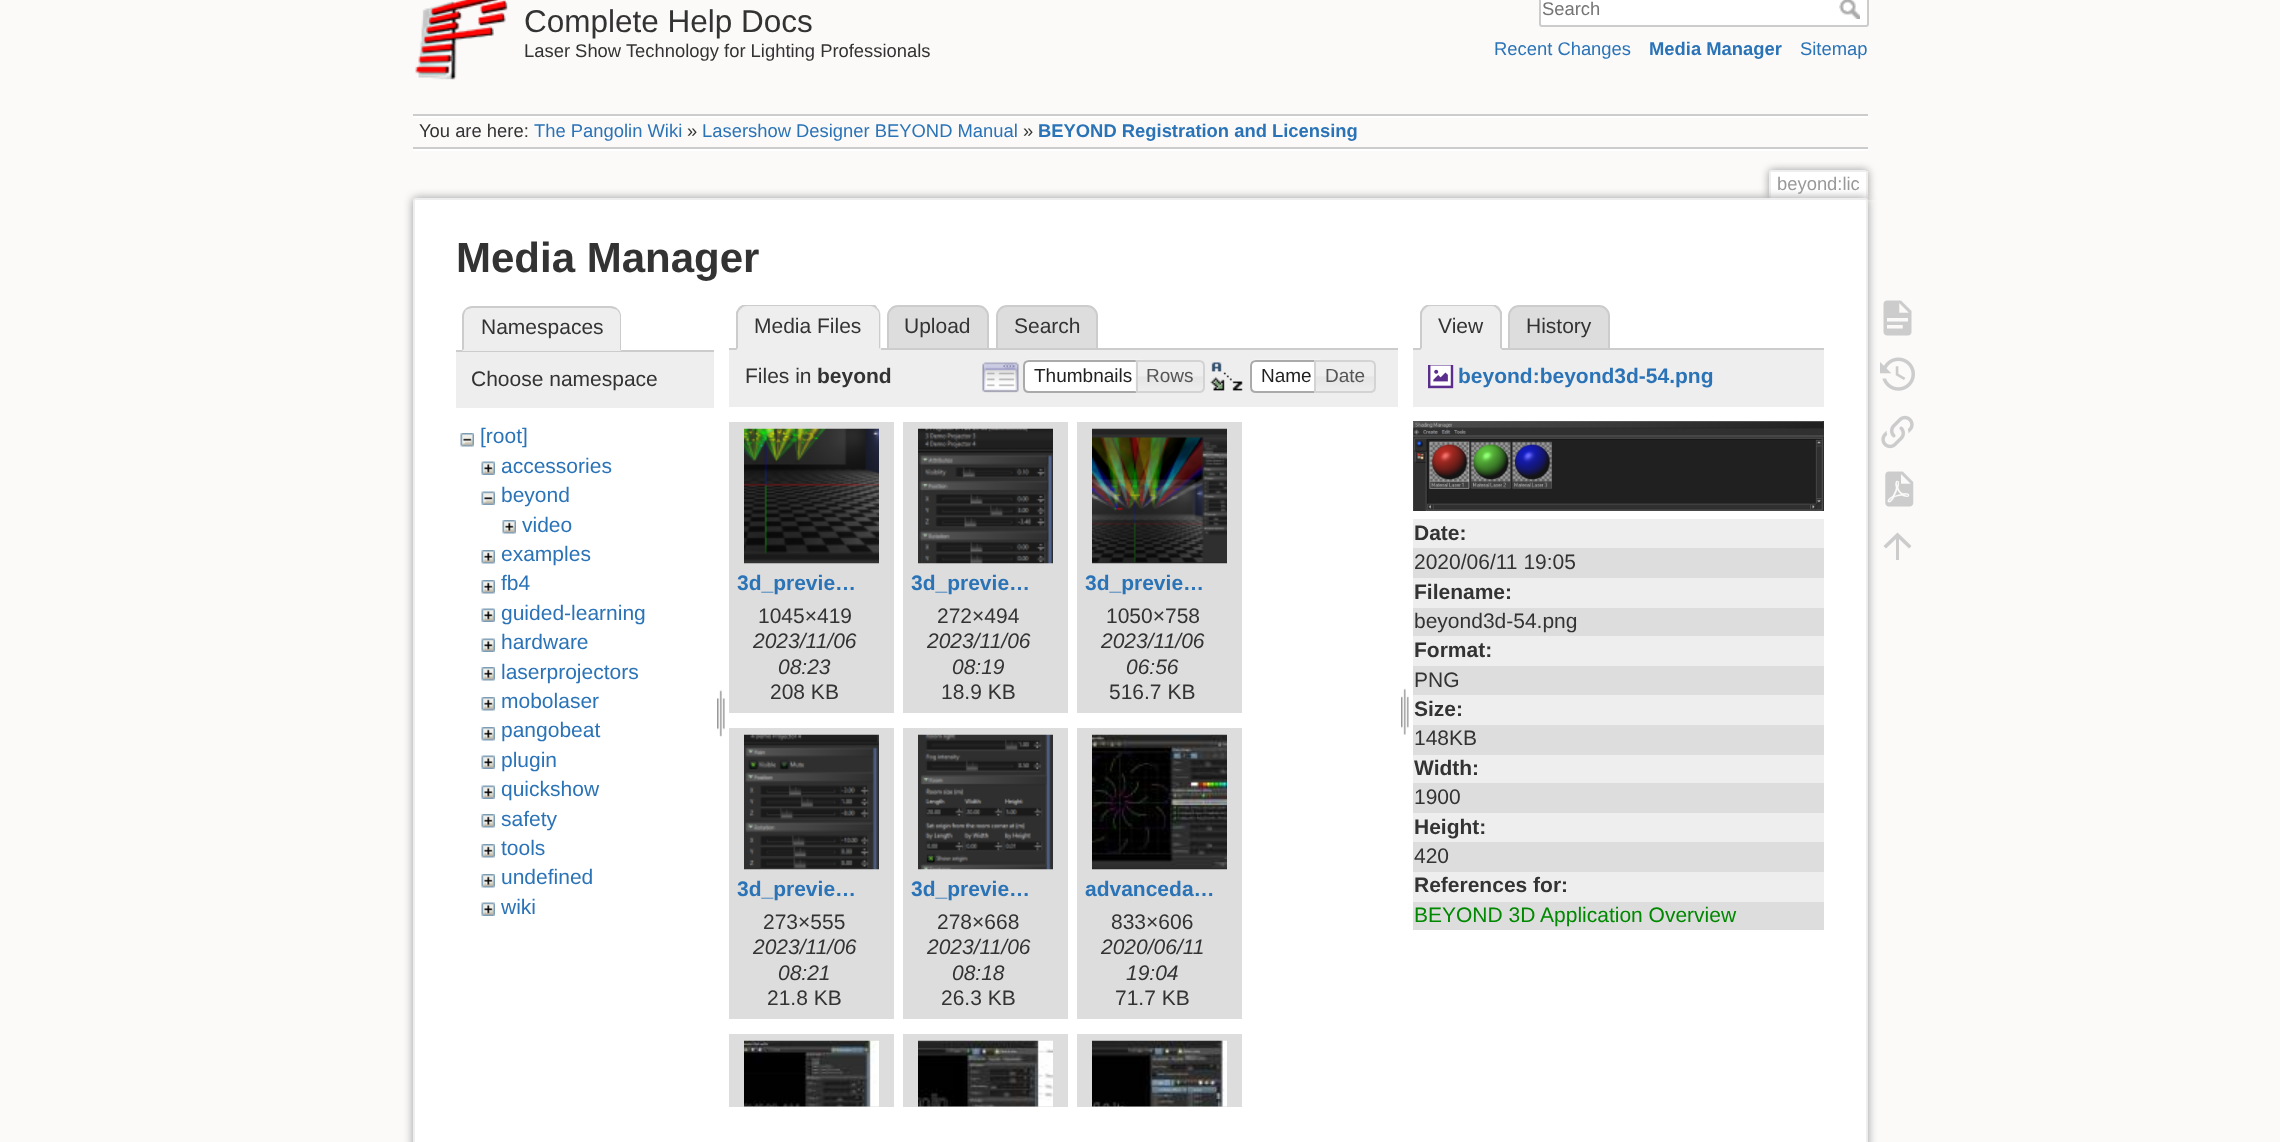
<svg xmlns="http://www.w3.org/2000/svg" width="2280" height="1142">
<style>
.a{font:31.5px Liberation Sans;fill:#333}
.b{font:18.4px Liberation Sans;fill:#333}
.c{font:18.4px Liberation Sans;fill:#757575}
.d{font:18.4px Liberation Sans;fill:#2b73b7}
.e{font:bold 18.4px Liberation Sans;fill:#2b73b7}
.f{font:18.4px Liberation Sans;fill:#999}
.g{font:bold 42px Liberation Sans;fill:#333}
.h{font:21px Liberation Sans;fill:#333}
.i{font:21px Liberation Sans;fill:#2b73b7}
.j{font:bold 21px Liberation Sans;fill:#333}
.k{font:19px Liberation Sans;fill:#212121}
.l{font:19px Liberation Sans;fill:#555}
.m{font:bold 21px Liberation Sans;fill:#2b73b7}
.n{font:italic 21px Liberation Sans;fill:#333}
.o{font:21px Liberation Sans;fill:#080}
</style>
<defs>
<clipPath id="clip1"><path d="M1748 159h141v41H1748z"/></clipPath>
<clipPath id="clip2"><path d="M729 305h669v45H729z"/></clipPath>
<clipPath id="clip3"><path d="M1413 305h411v45H1413z"/></clipPath>
</defs>
<rect width="100%" height="100%" fill="#fbfaf9"/>
<image href="1.png" x="415" y="0" width="93" height="80"/>
<rect fill="#fff" stroke="#ccc" stroke-width="2" x="1540" y="-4" width="328" height="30" rx="2"/>
<image href="2.png" x="1839" y="0" width="21" height="19"/>
<path fill="#ccc" d="M413 114h1455v2H413z"/>
<path fill="#fff" d="M413 149h1455v2H413z"/>
<path fill="#fff" d="M413 116h1455v2H413z"/>
<path fill="#ccc" d="M413 147h1455v2H413z"/>
<g clip-path="url(#clip1)">
<rect fill="#999" filter="blur(4.5px)" x="1769" y="170" width="99" height="30" rx="3"/>
</g>
<path fill="#fff" d="M1771 172h95v27H1771z"/>
<path fill="#eee" d="M1770 170h96v2H1770z"/>
<path fill="#eee" d="M1866 171h2v29H1866z"/>
<path fill="#eee" d="M1769 171h2v29H1769z"/>
<rect fill="#999" filter="blur(5px)" x="413" y="198" width="1455" height="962" rx="3"/>
<rect fill="#fff" stroke="#eee" stroke-width="2" x="414" y="199" width="1453" height="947" rx="2"/>
<path fill="#ccc" d="M456 350h258v2H456z"/>
<path fill="#eee" d="M473 306h137c6 0 11 5 11 11v34h-159v-34c0-6 5-11 11-11z"/>
<path fill="#ccc" d="M472 306c-2 0-5 1-7 3l1 1c2-1 4-2 6-2h138c2 0 5 1 7 2l1-1c-2-2-5-3-8-3z"/>
<path fill="#ccc" d="M621 351v-35c0-2-1-5-3-7l-1 1c2 2 3 4 3 6v34z"/>
<path fill="#eee" d="M621 351l-1-1h-156v-1l-2 2z"/>
<path fill="#ccc" d="M462 351l2-2v-33c0-2 1-4 2-6l-1-1c-2 2-3 5-3 7z"/>
<path fill="#eee" d="M456 352h258v56H456z"/>
<image href="3.png" x="460" y="433" width="14" height="14"/>
<image href="4.png" x="481" y="461" width="14" height="14"/>
<image href="5.png" x="481" y="491" width="14" height="14"/>
<image href="6.png" x="502" y="520" width="14" height="14"/>
<image href="6.png" x="481" y="550" width="14" height="14"/>
<image href="6.png" x="481" y="580" width="14" height="14"/>
<image href="4.png" x="481" y="608" width="14" height="14"/>
<image href="4.png" x="481" y="638" width="14" height="14"/>
<image href="6.png" x="481" y="667" width="14" height="14"/>
<image href="6.png" x="481" y="697" width="14" height="14"/>
<image href="6.png" x="481" y="727" width="14" height="14"/>
<image href="4.png" x="481" y="755" width="14" height="14"/>
<image href="4.png" x="481" y="785" width="14" height="14"/>
<image href="6.png" x="481" y="814" width="14" height="14"/>
<image href="6.png" x="481" y="844" width="14" height="14"/>
<image href="6.png" x="481" y="874" width="14" height="14"/>
<image href="4.png" x="481" y="902" width="14" height="14"/>
<image href="7.png" x="717" y="689" width="8" height="48"/>
<path fill="#ddd" stroke="#ccc" stroke-width="2" d="M898 306h80c5.5 0 10 4.5 10 10v33h-100v-33c0-5.5 4.5-10 10-10z"/>
<path fill="#ddd" stroke="#ccc" stroke-width="2" d="M1007 306h80c5.5 0 10 4.5 10 10v33h-100v-33c0-5.5 4.5-10 10-10z"/>
<path fill="#ccc" d="M729 348h669v2H729z"/>
<path fill="#eee" d="M748 305h122c6 0 11 5 11 11v34h-144v-34c0-6 5-11 11-11z"/>
<g clip-path="url(#clip2)">
<path fill="#ccc" d="M747 306c-3 0-5 1-6 3l-2-2l5-3h129c2 1 4 2 4 4l-1 1c-1-2-4-3-6-3z"/>
</g>
<path fill="#ccc" d="M877 308c2 1 3 4 3 7v34l-1-1v-33c0-3-1-5-3-6z"/>
<path fill="#eee" d="M880 349v1h-144l2-2h141z"/>
<path fill="#ccc" d="M736 350v-38c1-2 2-3 3-5l2 2c-2 1-3 3-3 6v33z"/>
<path fill="#eee" d="M729 350h669v57H729z"/>
<image href="8.png" x="982" y="362" width="37" height="31"/>
<path fill="#fff" d="M1029 360h114v33h-114c-3.5 0-6-2.5-6-6v-21c0-3.5 2.5-6 6-6z"/>
<image href="9.png" x="1023" y="359" width="120" height="5"/>
<path fill="none" stroke="#aaa" stroke-width="2" d="M1029 361h113v31h-113c-3 0-5-2-5-5v-21c0-3 2-5 5-5z"/>
<image href="10.png" x="1135" y="360" width="69" height="33"/>
<path fill="none" stroke="#d3d3d3" stroke-width="2" d="M1137 361h62c3 0 5 2 5 5v21c0 3-2 5-5 5h-62z"/>
<image href="11.png" x="1210" y="362" width="33" height="29"/>
<path fill="#fff" d="M1256 360h66v33h-66c-3.5 0-6-2.5-6-6v-21c0-3.5 2.5-6 6-6z"/>
<image href="12.png" x="1249" y="359" width="72" height="31"/>
<path fill="none" stroke="#aaa" stroke-width="2" d="M1256 361h65v31h-65c-3 0-5-2-5-5v-21c0-3 2-5 5-5z"/>
<image href="13.png" x="1316" y="360" width="59" height="32"/>
<path fill="none" stroke="#d3d3d3" stroke-width="2" d="M1315 361h55c3 0 5 2 5 5v21c0 3-2 5-5 5h-55z"/>
<path fill="#ddd" d="M729 422h165v291H729z"/>
<image href="14.png" x="744" y="428" width="135" height="136"/>
<path fill="#ddd" d="M903 422h165v291H903z"/>
<image href="15.png" x="918" y="428" width="135" height="136"/>
<path fill="#ddd" d="M1077 422h165v291H1077z"/>
<image href="16.png" x="1092" y="428" width="135" height="136"/>
<path fill="#ddd" d="M729 728h165v291H729z"/>
<image href="17.png" x="744" y="734" width="135" height="136"/>
<path fill="#ddd" d="M903 728h165v291H903z"/>
<image href="18.png" x="918" y="734" width="135" height="136"/>
<path fill="#ddd" d="M1077 728h165v291H1077z"/>
<image href="19.png" x="1092" y="734" width="135" height="136"/>
<path fill="#ddd" d="M729 1034h165v73H729z"/>
<image href="20.png" x="744" y="1040" width="135" height="67"/>
<path fill="#ddd" d="M903 1034h165v73H903z"/>
<image href="21.png" x="918" y="1040" width="135" height="67"/>
<path fill="#ddd" d="M1077 1034h165v73H1077z"/>
<image href="22.png" x="1092" y="1040" width="135" height="67"/>
<image href="23.png" x="1401" y="688" width="8" height="47"/>
<path fill="#ddd" stroke="#ccc" stroke-width="2" d="M1519 306h80c5.5 0 10 4.5 10 10v33h-100v-33c0-5.5 4.5-10 10-10z"/>
<path fill="#ccc" d="M1413 348h411v2H1413z"/>
<path fill="#eee" d="M1432 305h59c6 0 11 5 11 11v34h-81v-34c0-6 5-11 11-11z"/>
<g clip-path="url(#clip3)">
<path fill="#ccc" d="M1431 306c-3 0-5 1-6 3l-2-2l5-3h66l5 3l-2 2c-1-2-3-3-6-3z"/>
</g>
<path fill="#ccc" d="M1499 307c1 2 2 3 3 5v38l-2-2v-33c0-3-1-5-3-6z"/>
<path fill="#eee" d="M1502 350l-2-2h-78l-2 2z"/>
<path fill="#ccc" d="M1420 350v-38c1-2 2-3 3-5l2 2c-2 1-3 3-3 6v33z"/>
<path fill="#eee" d="M1413 350h411v57H1413z"/>
<image href="24.png" x="1428" y="365" width="26" height="24"/>
<image href="25.png" x="1413" y="421" width="411" height="90"/>
<path fill="#eee" d="M1413 519h411v29H1413z"/>
<path fill="#ddd" d="M1413 548h411v30H1413z"/>
<path fill="#eee" d="M1413 578h411v30H1413z"/>
<path fill="#ddd" d="M1413 608h411v28H1413z"/>
<path fill="#eee" d="M1413 636h411v30H1413z"/>
<path fill="#ddd" d="M1413 666h411v29H1413z"/>
<path fill="#eee" d="M1413 695h411v30H1413z"/>
<path fill="#ddd" d="M1413 725h411v30H1413z"/>
<path fill="#eee" d="M1413 755h411v28H1413z"/>
<path fill="#ddd" d="M1413 783h411v30H1413z"/>
<path fill="#eee" d="M1413 813h411v29H1413z"/>
<path fill="#ddd" d="M1413 842h411v30H1413z"/>
<path fill="#eee" d="M1413 872h411v30H1413z"/>
<path fill="#ddd" d="M1413 902h411v28H1413z"/>
<image href="26.png" x="1883" y="300" width="29" height="36"/>
<image href="27.png" x="1880" y="357" width="35" height="34"/>
<image href="28.png" x="1881" y="415" width="33" height="34"/>
<image href="29.png" x="1885" y="471" width="29" height="36"/>
<path fill="#ccc" d="M1899 560h-3v-21l-10 9.5l-2.5-2.5l14-13.5l14 13.5l-2.5 2.5l-10-9.5z"/>
<text class="a" x="524" y="32">Complete Help Docs</text>
<text class="b" x="524" y="57">Laser Show Technology for Lighting Professionals</text>
<text class="c" x="1542" y="15">Search</text>
<text class="d" x="1494" y="55">Recent Changes</text>
<text class="e" x="1649" y="55">Media Manager</text>
<text class="d" x="1800" y="55">Sitemap</text>
<text class="b" x="419" y="137">You are here:</text>
<text class="d" x="534" y="137">The Pangolin Wiki</text>
<text class="b" x="687" y="137">»</text>
<text class="d" x="702" y="137">Lasershow Designer BEYOND Manual</text>
<text class="b" x="1023" y="137">»</text>
<text class="e" x="1038" y="137">BEYOND Registration and Licensing</text>
<text class="f" x="1777" y="190">beyond:lic</text>
<text class="g" x="456" y="272">Media Manager</text>
<text class="h" x="481" y="334">Namespaces</text>
<text class="h" x="471" y="386">Choose namespace</text>
<text class="i" x="480" y="443">[root]</text>
<text class="i" x="501" y="473">accessories</text>
<text class="i" x="501" y="502">beyond</text>
<text class="i" x="522" y="532">video</text>
<text class="i" x="501" y="561">examples</text>
<text class="i" x="501" y="590">fb4</text>
<text class="i" x="501" y="620">guided-learning</text>
<text class="i" x="501" y="649">hardware</text>
<text class="i" x="501" y="679">laserprojectors</text>
<text class="i" x="501" y="708">mobolaser</text>
<text class="i" x="501" y="737">pangobeat</text>
<text class="i" x="501" y="767">plugin</text>
<text class="i" x="501" y="796">quickshow</text>
<text class="i" x="501" y="826">safety</text>
<text class="i" x="501" y="855">tools</text>
<text class="i" x="501" y="884">undefined</text>
<text class="i" x="501" y="914">wiki</text>
<text class="h" x="754" y="333">Media Files</text>
<text class="h" x="904" y="333">Upload</text>
<text class="h" x="1014" y="333">Search</text>
<text class="h" x="745" y="383">Files in</text>
<text class="j" x="817" y="383">beyond</text>
<text class="k" x="1034" y="382">Thumbnails</text>
<text class="l" x="1146" y="382">Rows</text>
<text class="k" x="1261" y="382">Name</text>
<text class="l" x="1325" y="382">Date</text>
<text class="m" x="737" y="590">3d_previe…</text>
<text class="h" x="758" y="623">1045×419</text>
<text class="n" x="753" y="648">2023/11/06</text>
<text class="n" x="778" y="674">08:23</text>
<text class="h" x="770" y="699">208 KB</text>
<text class="m" x="911" y="590">3d_previe…</text>
<text class="h" x="937" y="623">272×494</text>
<text class="n" x="927" y="648">2023/11/06</text>
<text class="n" x="952" y="674">08:19</text>
<text class="h" x="941" y="699">18.9 KB</text>
<text class="m" x="1085" y="590">3d_previe…</text>
<text class="h" x="1106" y="623">1050×758</text>
<text class="n" x="1101" y="648">2023/11/06</text>
<text class="n" x="1126" y="674">06:56</text>
<text class="h" x="1109" y="699">516.7 KB</text>
<text class="m" x="737" y="896">3d_previe…</text>
<text class="h" x="763" y="929">273×555</text>
<text class="n" x="753" y="954">2023/11/06</text>
<text class="n" x="778" y="980">08:21</text>
<text class="h" x="767" y="1005">21.8 KB</text>
<text class="m" x="911" y="896">3d_previe…</text>
<text class="h" x="937" y="929">278×668</text>
<text class="n" x="927" y="954">2023/11/06</text>
<text class="n" x="952" y="980">08:18</text>
<text class="h" x="941" y="1005">26.3 KB</text>
<text class="m" x="1085" y="896">advanceda…</text>
<text class="h" x="1111" y="929">833×606</text>
<text class="n" x="1101" y="954">2020/06/11</text>
<text class="n" x="1126" y="980">19:04</text>
<text class="h" x="1115" y="1005">71.7 KB</text>
<text class="h" x="1438" y="333">View</text>
<text class="h" x="1526" y="333">History</text>
<text class="m" x="1458" y="383">beyond:beyond3d-54.png</text>
<text class="j" x="1414" y="540">Date:</text>
<text class="h" x="1414" y="569">2020/06/11 19:05</text>
<text class="j" x="1414" y="599">Filename:</text>
<text class="h" x="1414" y="628">beyond3d-54.png</text>
<text class="j" x="1414" y="657">Format:</text>
<text class="h" x="1414" y="687">PNG</text>
<text class="j" x="1414" y="716">Size:</text>
<text class="h" x="1414" y="745">148KB</text>
<text class="j" x="1414" y="775">Width:</text>
<text class="h" x="1414" y="804">1900</text>
<text class="j" x="1414" y="834">Height:</text>
<text class="h" x="1414" y="863">420</text>
<text class="j" x="1414" y="892">References for:</text>
<text class="o" x="1414" y="922">BEYOND 3D Application Overview</text>
</svg>
